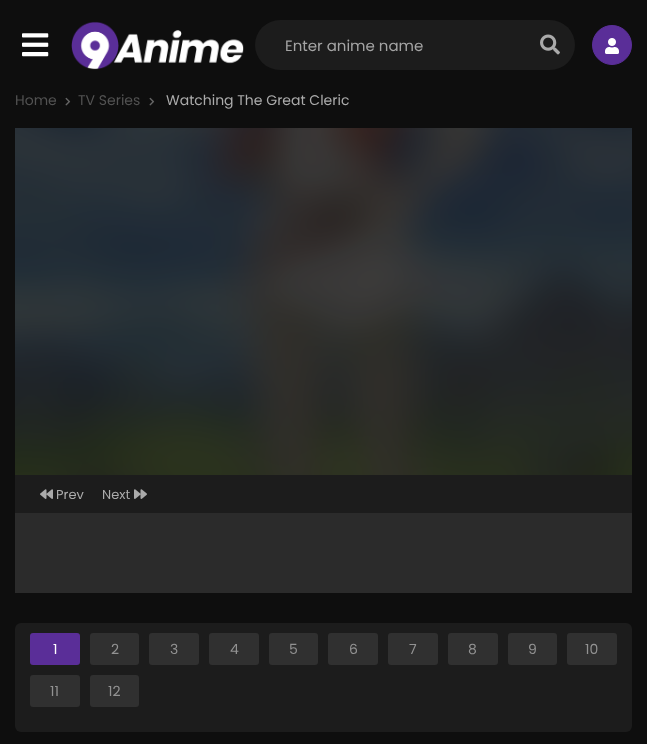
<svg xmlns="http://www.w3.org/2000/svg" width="647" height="744">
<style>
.a{font:15px Poppins;fill:#a4a4a4}
.b{font:14px Poppins;fill:#525252}
.c{font:14px Poppins;fill:#ababab}
.d{font:13px Poppins;fill:#ababab}
.e{font:14px Poppins;fill:#fff}
.f{font:14px Poppins;fill:#929292}
</style>
<rect width="100%" height="100%" fill="#0e0e0e"/>
<image href="1.png" x="22" y="33" width="27" height="24"/>
<image href="2.png" x="71" y="21" width="173" height="49"/>
<rect fill="#1c1c1c" x="255" y="20" width="320" height="50" rx="25"/>
<image href="3.png" x="540" y="34" width="20" height="21"/>
<circle fill="#5a2e98" stroke="#5a2e98" cx="612" cy="45" r="19.5"/>
<image href="4.png" x="605" y="38" width="14" height="16"/>
<image href="5.png" x="65" y="97" width="6" height="9"/>
<image href="5.png" x="149" y="97" width="6" height="9"/>
<image href="6.png" x="15" y="128" width="617" height="347"/>
<path fill="#1c1c1c" d="M15 475h617v38H15z"/>
<image href="7.png" x="40" y="489" width="13" height="10"/>
<image href="8.png" x="134" y="489" width="13" height="10"/>
<path fill="#2b2b2b" d="M15 513h617v80H15z"/>
<rect fill="#1c1c1c" x="15" y="623" width="617" height="109" rx="6"/>
<rect fill="#5a2e98" x="30" y="633" width="50" height="32" rx="3"/>
<rect fill="#303030" x="90" y="633" width="49" height="32" rx="3"/>
<rect fill="#303030" x="149" y="633" width="50" height="32" rx="3"/>
<rect fill="#303030" x="209" y="633" width="50" height="32" rx="3"/>
<rect fill="#303030" x="269" y="633" width="49" height="32" rx="3"/>
<rect fill="#303030" x="328" y="633" width="50" height="32" rx="3"/>
<rect fill="#303030" x="388" y="633" width="50" height="32" rx="3"/>
<rect fill="#303030" x="448" y="633" width="50" height="32" rx="3"/>
<rect fill="#303030" x="508" y="633" width="49" height="32" rx="3"/>
<rect fill="#303030" x="567" y="633" width="50" height="32" rx="3"/>
<rect fill="#303030" x="30" y="675" width="50" height="32" rx="3"/>
<rect fill="#303030" x="90" y="675" width="49" height="32" rx="3"/>
<text class="a" x="285" y="51">Enter anime name</text>
<text class="b" x="15" y="105">Home</text>
<text class="b" x="78" y="105">TV Series</text>
<text class="c" x="166" y="105">Watching The Great Cleric</text>
<text class="d" x="56" y="499">Prev</text>
<text class="d" x="102" y="499">Next</text>
<text class="e" x="53" y="654">1</text>
<text class="f" x="111" y="654">2</text>
<text class="f" x="170" y="654">3</text>
<text class="f" x="230" y="654">4</text>
<text class="f" x="289" y="654">5</text>
<text class="f" x="349" y="654">6</text>
<text class="f" x="409" y="654">7</text>
<text class="f" x="468" y="654">8</text>
<text class="f" x="528" y="654">9</text>
<text class="f" x="585" y="654">10</text>
<text class="f" x="50" y="696">11</text>
<text class="f" x="108" y="696">12</text>
</svg>
